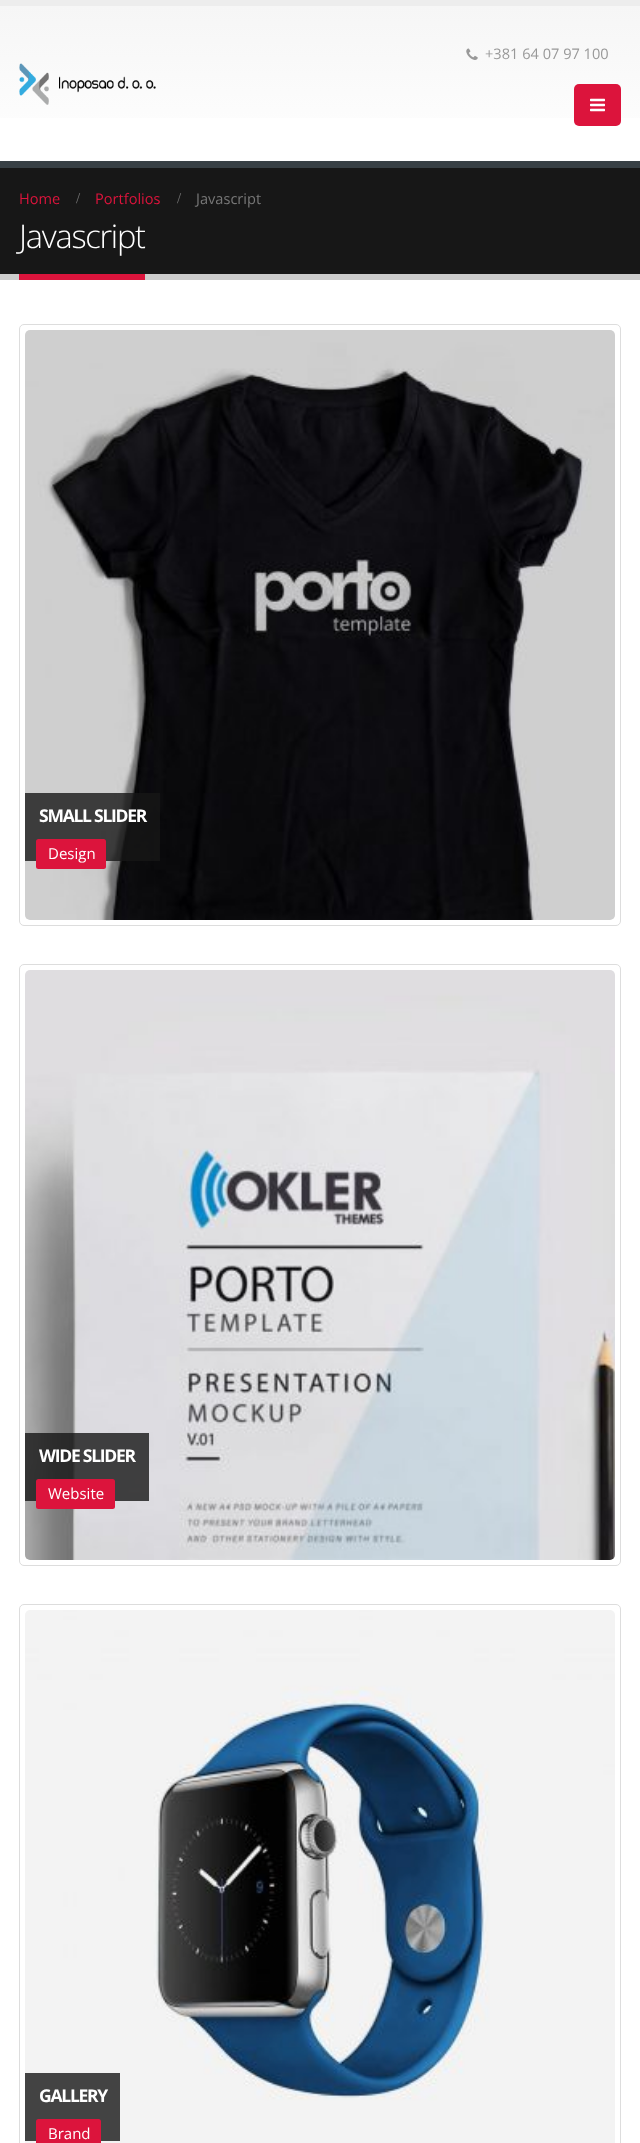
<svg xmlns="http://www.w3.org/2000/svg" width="640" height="2143">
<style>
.a{font:14.6px Open Sans;fill:#999}
.b{font:14.6px Open Sans;fill:#dc143c}
.c{font:15px Liberation Serif;fill:#777}
.d{font:14.6px Open Sans;fill:#777}
.e{font:300 32.5px Open Sans;letter-spacing:-1.25px;fill:#fff}
.f{font:bold 17.5px Open Sans;letter-spacing:-1.25px;fill:#fff}
.g{font:15px Open Sans;fill:#fff}
</style>
<defs>
<linearGradient id="g1" gradientUnits="userSpaceOnUse" x1="320" y1="6.2" x2="320" y2="161"><stop offset="0" stop-color="#f6f6f6"/><stop offset="1" stop-color="#fff"/></linearGradient>
</defs>
<rect width="100%" height="100%" fill="#fff"/>
<path fill="#ededed" d="M0 0h640v6H0z"/>
<path fill="url(#g1)" d="M0 6h640v112H0z"/>
<image href="1.png" x="466" y="48" width="12" height="12"/>
<rect fill="#dc143c" x="574" y="84" width="47" height="42" rx="5"/>
<image href="2.png" x="590" y="98" width="15" height="14"/>
<image href="3.png" x="19" y="63" width="137" height="42"/>
<path fill="#171717" d="M0 168h640v106H0z"/>
<path fill="#384045" d="M0 161h640v7H0z"/>
<path fill="#ccc" d="M0 274h640v6H0z"/>
<path fill="#dc143c" d="M19 274h126v6H19z"/>
<rect fill="none" stroke="#ddd" x="19.5" y="324.5" width="601" height="601" rx="4.5"/>
<image href="4.png" x="25" y="330" width="590" height="590"/>
<path fill="#171717cc" d="M25 793h135v68H25z"/>
<rect fill="#dc143c" x="36" y="839" width="70" height="30" rx="2.5"/>
<rect fill="none" stroke="#ddd" x="19.5" y="964.5" width="601" height="601" rx="4.5"/>
<image href="5.png" x="25" y="970" width="590" height="590"/>
<path fill="#171717cc" d="M25 1433h124v68H25z"/>
<rect fill="#dc143c" x="36" y="1479" width="79" height="30" rx="2.5"/>
<rect fill="none" stroke="#ddd" x="19.5" y="1604.5" width="601" height="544" rx="4.5"/>
<image href="6.png" x="25" y="1610" width="590" height="533"/>
<path fill="#434343" d="M25 2073h95v68H25z"/>
<rect fill="#dc143c" x="36" y="2119" width="65" height="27" rx="2.5"/>
<text class="a" x="485" y="59">+381 64 07 97 100</text>
<text class="b" x="19" y="204">Home</text>
<text class="c" x="76" y="203">/</text>
<text class="b" x="95" y="204">Portfolios</text>
<text class="c" x="177" y="203">/</text>
<text class="d" x="196" y="204">Javascript</text>
<text class="e" x="19" y="248">Javascript</text>
<text class="f" x="39" y="822">SMALL SLIDER</text>
<text class="g" x="48" y="859">Design</text>
<text class="f" x="39" y="1462">WIDE SLIDER</text>
<text class="g" x="48" y="1499">Website</text>
<text class="f" x="39" y="2102">GALLERY</text>
<text class="g" x="48" y="2139">Brand</text>
</svg>
